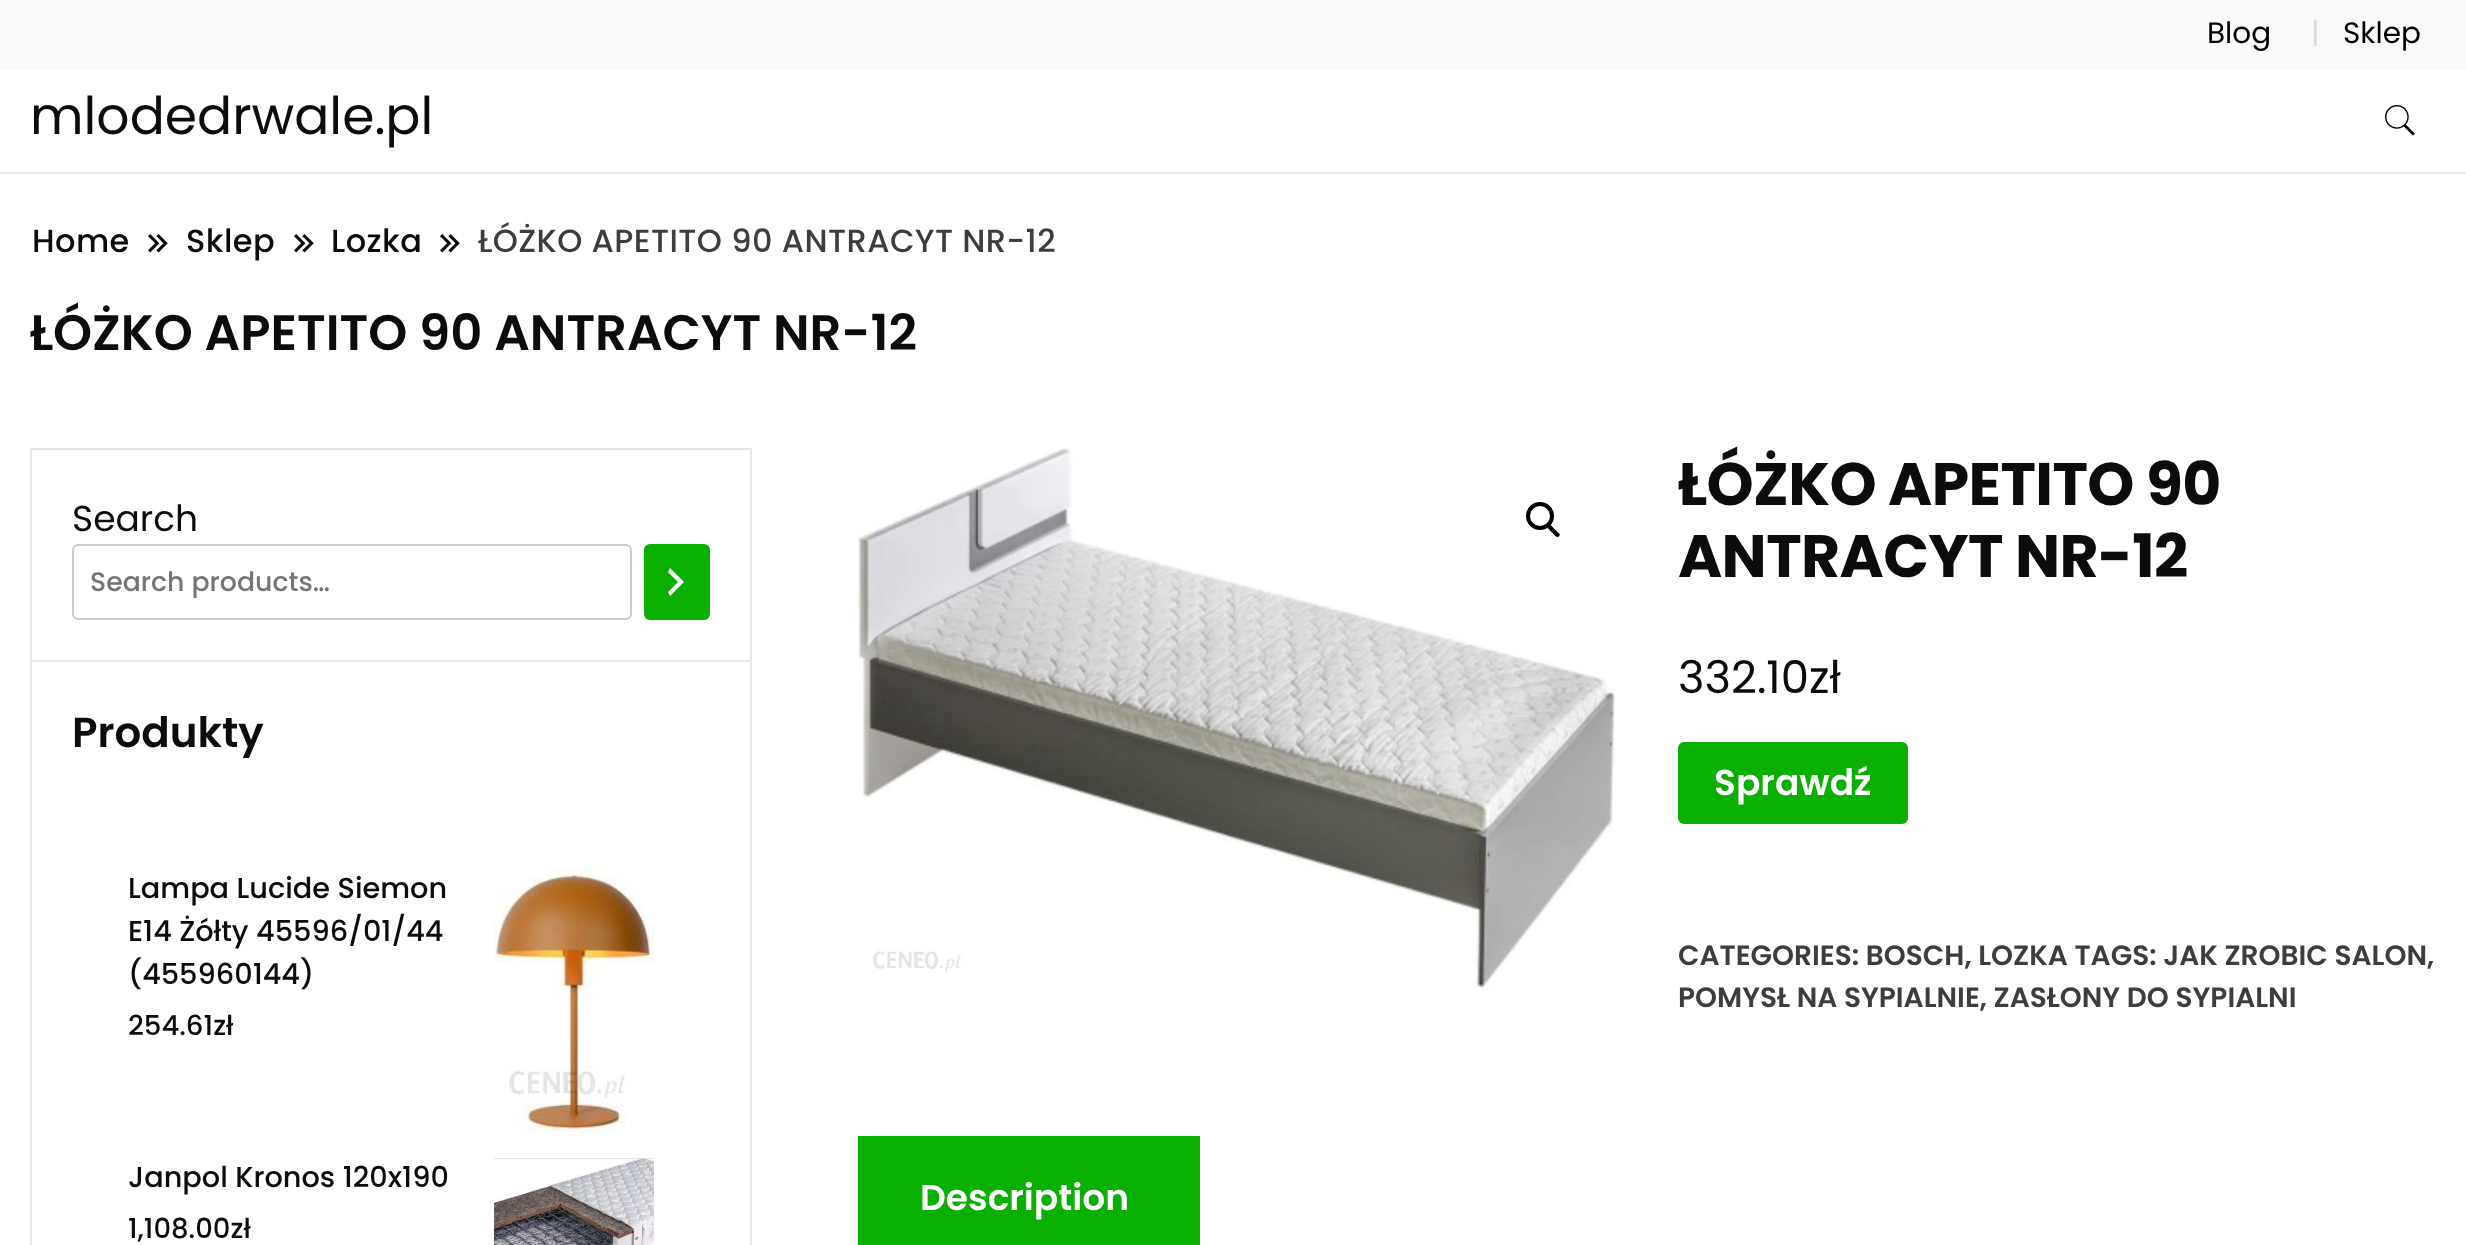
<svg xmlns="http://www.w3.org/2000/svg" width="2466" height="1245">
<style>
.a{font:29.5px Poppins;fill:#000}
.b{font:29.5px Poppins;fill:#ddd}
.c{font:52px Poppins;fill:#0c0c0c}
.d{font:500 32px Poppins;letter-spacing:0.45px;fill:#0c0c0c}
.e{font:500 32px Poppins;letter-spacing:0.45px;fill:#3d3d3d}
.f{font:600 49.75px Poppins;fill:#0c0c0c}
.g{font:36px Poppins;fill:#0c0c0c}
.h{font:500 26.75px Poppins;fill:#757575}
.i{font:600 42px Poppins;fill:#0c0c0c}
.j{font:500 28.75px Poppins;fill:#0c0c0c}
.k{font:500 27.5px Poppins;fill:#0c0c0c}
.l{font:bold 60px Poppins;letter-spacing:-0.6px;fill:#0c0c0c}
.m{font:45px Poppins;fill:#0c0c0c}
.n{font:600 36px Poppins;fill:#fff}
.o{font:600 28px Poppins;fill:#3d3d3d}
</style>
<rect width="100%" height="100%" fill="#fff"/>
<path fill="#e8e9e9" d="M0 172h2466v2H0z"/>
<path fill="#f8f9fa" d="M0 0h2466v70H0z"/>
<image href="1.png" x="2385" y="105" width="30" height="31"/>
<image href="2.png" x="148" y="234" width="20" height="19"/>
<image href="2.png" x="294" y="234" width="20" height="19"/>
<image href="2.png" x="440" y="234" width="20" height="19"/>
<path fill="none" stroke="#e7e7e7" stroke-width="2" d="M31 449h720v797H31z"/>
<path fill="#e7e7e7" d="M32 660h718v2H32z"/>
<rect fill="none" stroke="#ccc" stroke-width="2" x="73" y="545" width="558" height="74" rx="5"/>
<rect fill="#09b000" x="644" y="544" width="66" height="76" rx="6"/>
<path fill="#fff" d="M668 592l10-10l-10-10l2-4l14 14l-14 14z"/>
<image href="3.png" x="494" y="868" width="160" height="264"/>
<image href="4.png" x="494" y="1158" width="160" height="87"/>
<image href="5.png" x="858" y="448" width="758" height="544"/>
<circle fill="none" stroke="#000" stroke-width="4" cx="1540" cy="516" r="12"/>
<path fill="#000" d="M1547.5 525c1-.5 2-.5 3 0l8.5 8.5c1 1 1 2 0 3c-1 .5-2 .5-3 0l-8.5-8.5c-.5-1-.5-2 0-3z"/>
<rect fill="#09b000" x="1678" y="742" width="230" height="82" rx="6"/>
<path fill="#09b000" d="M858 1136h342v109H858z"/>
<text class="a" x="2207" y="43">Blog</text>
<text class="b" x="2311" y="43">|</text>
<text class="a" x="2343" y="43">Sklep</text>
<text class="c" x="30" y="134">mlodedrwale.pl</text>
<text class="d" x="32" y="252">Home</text>
<text class="d" x="186" y="252">Sklep</text>
<text class="d" x="331" y="252">Lozka</text>
<text class="e" x="478" y="252">ŁÓŻKO APETITO 90 ANTRACYT NR-12</text>
<text class="f" x="30" y="350">ŁÓŻKO APETITO 90 ANTRACYT NR-12</text>
<text class="g" x="72" y="531">Search</text>
<text class="h" x="90" y="591">Search products…</text>
<text class="i" x="72" y="747">Produkty</text>
<text class="j" x="128" y="898">Lampa Lucide Siemon</text>
<text class="j" x="128" y="941">E14 Żółty 45596/01/44</text>
<text class="j" x="128" y="984">(455960144)</text>
<text class="k" x="128" y="1035">254.61zł</text>
<text class="j" x="128" y="1187">Janpol Kronos 120x190</text>
<text class="k" x="128" y="1238">1,108.00zł</text>
<text class="l" x="1678" y="505">ŁÓŻKO APETITO 90</text>
<text class="l" x="1678" y="577">ANTRACYT NR-12</text>
<text class="m" x="1678" y="693">332.10zł</text>
<text class="n" x="1714" y="795">Sprawdź</text>
<text class="o" x="1678" y="965">CATEGORIES: BOSCH, LOZKA TAGS: JAK ZROBIC SALON,</text>
<text class="o" x="1678" y="1007">POMYSŁ NA SYPIALNIE, ZASŁONY DO SYPIALNI</text>
<text class="n" x="920" y="1210">Description</text>
</svg>
